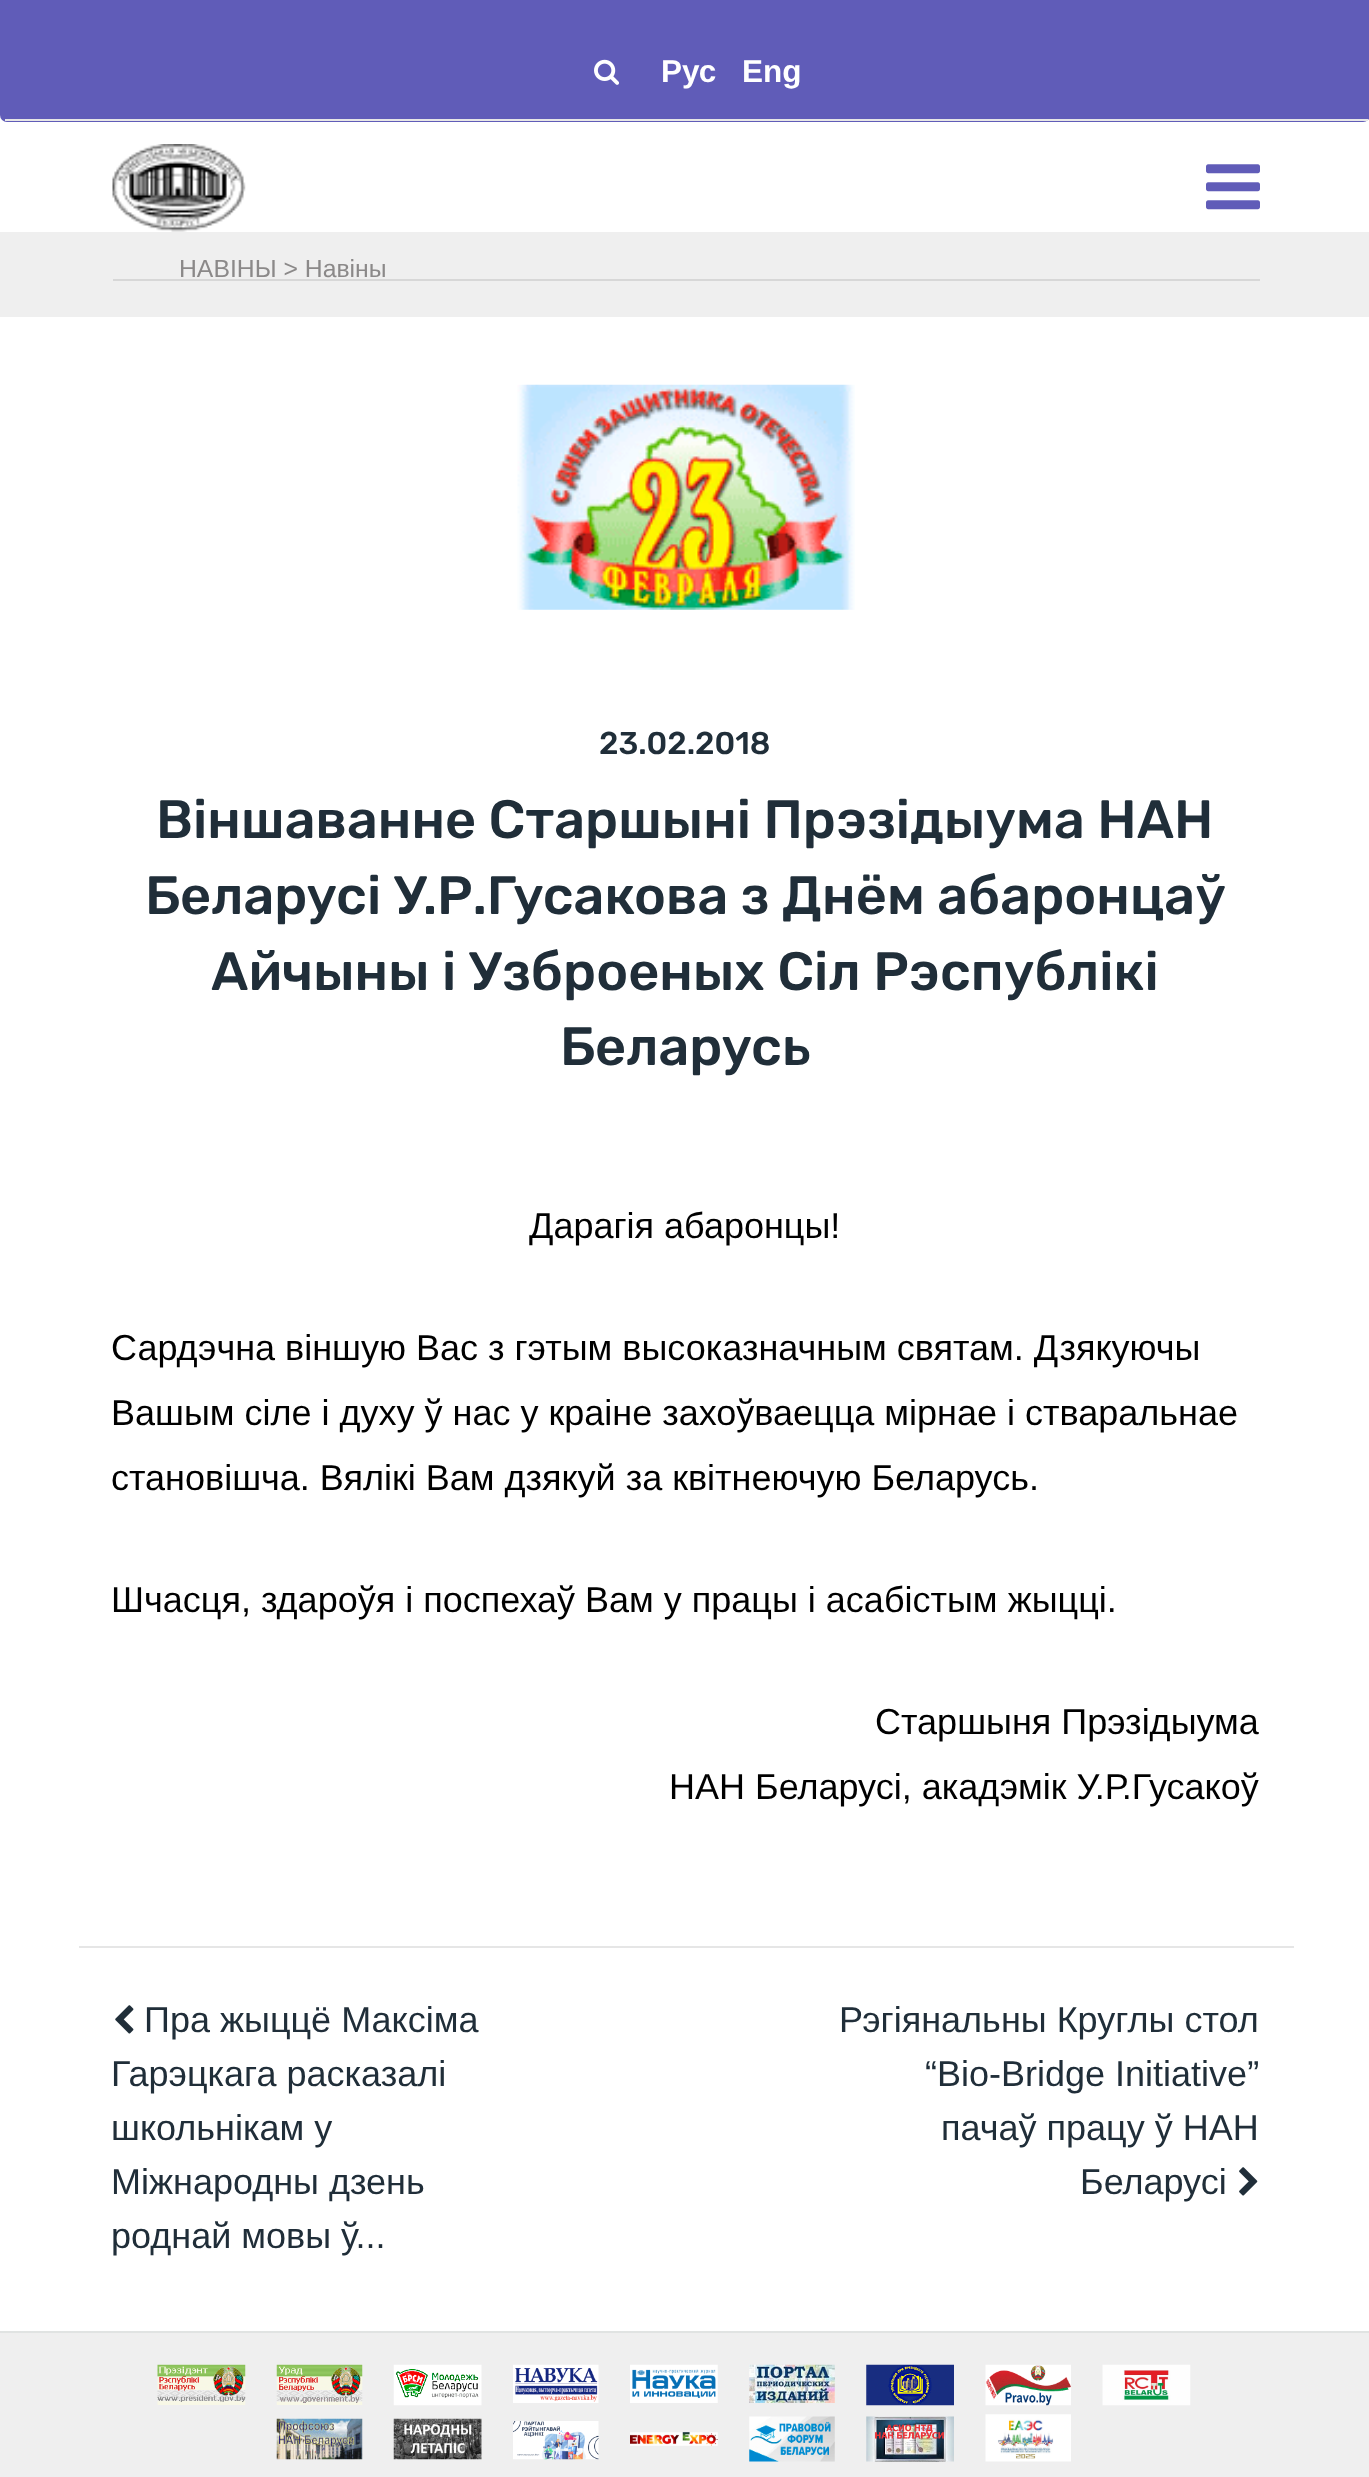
<svg xmlns="http://www.w3.org/2000/svg" width="1369" height="2477">
<style>
.a{font:bold 31.5px Liberation Sans;fill:#fff}
.b{font:24.75px Liberation Sans;fill:#8b8989}
.c{font:500 31.5px Rubik;fill:#202e39}
.d{font:500 54px Rubik;fill:#202e39}
.e{font:36px Liberation Sans;fill:#000}
.f{font:36px Liberation Sans;fill:#202e39}
</style>
<rect width="100%" height="100%" fill="#fff"/>
<rect fill="#605cb8" y="-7" width="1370" height="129" rx="7"/>
<path fill="#e6e6e6" d="M5 119h1363v2H5z"/>
<image href="1.png" x="594" y="59" width="25" height="26"/>
<image href="2.png" x="112" y="144" width="134" height="88"/>
<image href="3.png" x="1206" y="164" width="54" height="46"/>
<path fill="#efefef" d="M0 232h1369v85H0z"/>
<path fill="#d7d7d7" d="M113 279h1147v2H113z"/>
<image href="4.png" x="517" y="384" width="338" height="226"/>
<path fill="#e6e6e6" d="M79 1946h1215v2H79z"/>
<image href="5.png" x="115" y="2005" width="19" height="29"/>
<image href="6.png" x="1239" y="2167" width="19" height="29"/>
<path fill="#efefef" d="M0 2333h1369v144H0z"/>
<path fill="#e0e3e2" d="M0 2331h1369v2H0z"/>
<image href="7.png" x="157" y="2364" width="89" height="41"/>
<image href="8.png" x="276" y="2364" width="87" height="41"/>
<image href="9.png" x="393" y="2364" width="89" height="42"/>
<image href="10.png" x="513" y="2364" width="86" height="39"/>
<image href="11.png" x="630" y="2364" width="88" height="39"/>
<image href="12.png" x="749" y="2364" width="86" height="39"/>
<image href="13.png" x="866" y="2364" width="88" height="42"/>
<image href="14.png" x="985" y="2364" width="86" height="42"/>
<image href="15.png" x="1102" y="2364" width="89" height="42"/>
<image href="16.png" x="276" y="2418" width="87" height="42"/>
<image href="17.png" x="393" y="2418" width="89" height="42"/>
<image href="18.png" x="513" y="2421" width="86" height="39"/>
<image href="19.png" x="630" y="2432" width="88" height="14"/>
<image href="20.png" x="749" y="2416" width="86" height="46"/>
<image href="21.png" x="866" y="2416" width="88" height="46"/>
<image href="22.png" x="985" y="2414" width="86" height="48"/>
<text class="a" x="661" y="82">Рус</text>
<text class="a" x="742" y="82">Eng</text>
<text class="b" x="179" y="277">НАВIНЫ &gt; Навіны</text>
<text class="c" x="599" y="754">23.02.2018</text>
<text class="d" x="156" y="838">Віншаванне Старшыні Прэзідыума НАН</text>
<text class="d" x="145" y="914">Беларусі У.Р.Гусакова з Днём абаронцаў</text>
<text class="d" x="211" y="990">Айчыны і Узброеных Сіл Рэспублікі</text>
<text class="d" x="560" y="1065">Беларусь</text>
<text class="e" x="529" y="1238">Дарагія абаронцы!</text>
<text class="e" x="111" y="1360">Сардэчна віншую Вас з гэтым высоказначным святам. Дзякуючы</text>
<text class="e" x="111" y="1425">Вашым сіле і духу ў нас у краіне захоўваецца мірнае і стваральнае</text>
<text class="e" x="111" y="1490">становішча. Вялікі Вам дзякуй за квітнеючую Беларусь.</text>
<text class="e" x="111" y="1612">Шчасця, здароўя і поспехаў Вам у працы і асабістым жыцці.</text>
<text class="e" x="875" y="1734">Старшыня Прэзідыума</text>
<text class="e" x="669" y="1799">НАН Беларусі, акадэмік У.Р.Гусакоў</text>
<text class="f" x="144" y="2032">Пра жыццё Максіма</text>
<text class="f" x="111" y="2086">Гарэцкага расказалі</text>
<text class="f" x="111" y="2140">школьнікам у</text>
<text class="f" x="111" y="2194">Міжнародны дзень</text>
<text class="f" x="111" y="2248">роднай мовы ў...</text>
<text class="f" x="839" y="2032">Рэгіянальны Круглы стол</text>
<text class="f" x="925" y="2086">“Bio-Bridge Initiative”</text>
<text class="f" x="941" y="2140">пачаў працу ў НАН</text>
<text class="f" x="1080" y="2194">Беларусі</text>
</svg>
